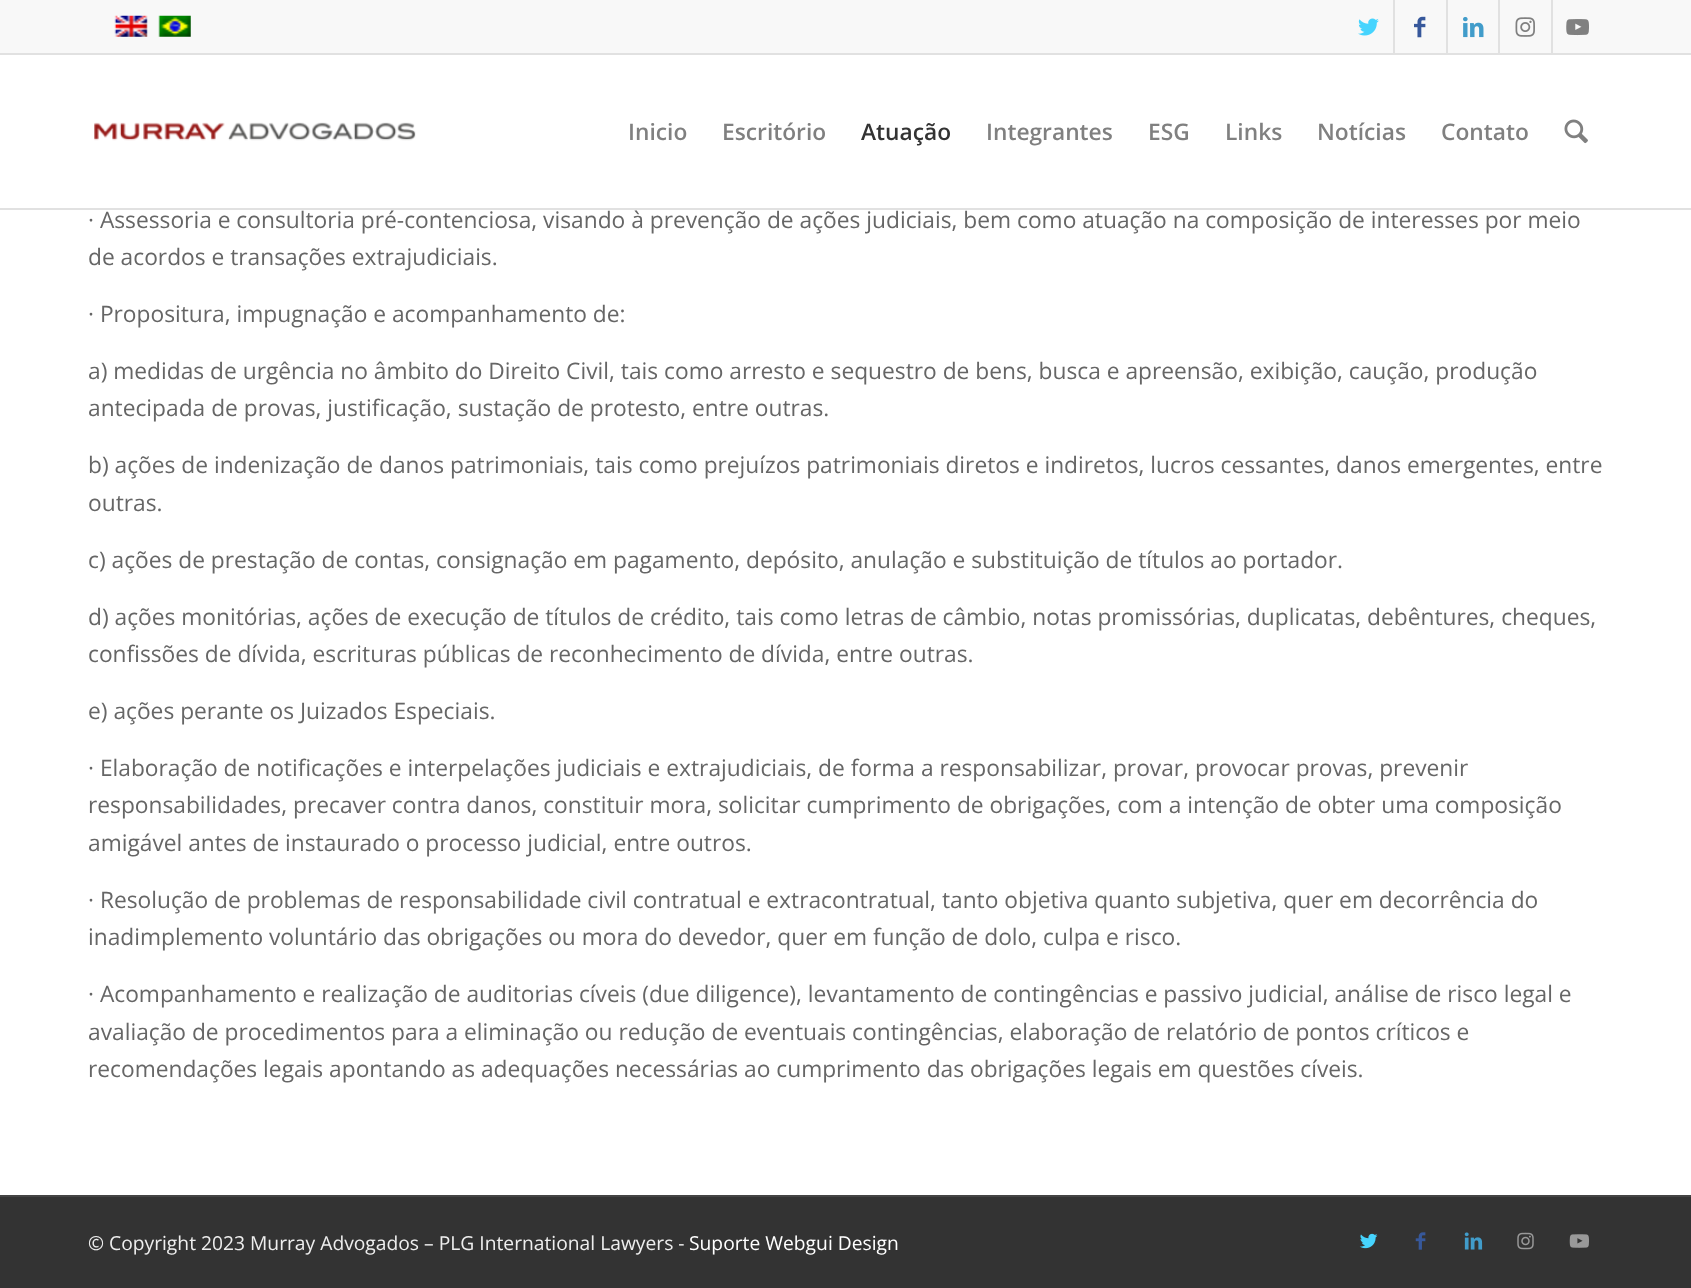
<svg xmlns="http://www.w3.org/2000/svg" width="1691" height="1288">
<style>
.a{font:600 22.75px Open Sans;fill:#808080}
.b{font:600 22.75px Open Sans;fill:#333}
.c{font:22.75px Open Sans;fill:#666}
.d{font:19.25px Open Sans;fill:#eee}
.e{font:19.25px Open Sans;fill:#fff}
</style>
<rect width="100%" height="100%" fill="#fff"/>
<path fill="#f8f8f8" d="M0 0h1691v53H0z"/>
<path fill="#e1e1e1" d="M0 53h1691v2H0z"/>
<image href="1.png" x="114" y="15" width="34" height="22"/>
<image href="2.png" x="158" y="15" width="33" height="22"/>
<path fill="#e1e1e1" d="M1393 0h2v53H1393z"/>
<image href="3.png" x="1358" y="18" width="21" height="18"/>
<path fill="#e1e1e1" d="M1446 0h2v53H1446z"/>
<image href="4.png" x="1414" y="16" width="12" height="22"/>
<path fill="#e1e1e1" d="M1498 0h2v53H1498z"/>
<image href="5.png" x="1463" y="16" width="21" height="22"/>
<path fill="#e1e1e1" d="M1551 0h2v53H1551z"/>
<image href="6.png" x="1515" y="17" width="20" height="20"/>
<image href="7.png" x="1566" y="19" width="23" height="17"/>
<path fill="#e1e1e1" d="M0 208h1691v2H0z"/>
<image href="8.png" x="94" y="122" width="322" height="19"/>
<image href="9.png" x="1564" y="119" width="24" height="25"/>
<path fill="#333" d="M0 1197h1691v91H0z"/>
<path fill="#444" d="M0 1195h1691v2H0z"/>
<image href="10.png" x="1359" y="1233" width="19" height="16"/>
<image href="11.png" x="1415" y="1232" width="11" height="18"/>
<image href="12.png" x="1464" y="1232" width="19" height="18"/>
<image href="13.png" x="1517" y="1232" width="17" height="18"/>
<image href="14.png" x="1569" y="1234" width="20" height="14"/>
<text class="a" x="628" y="140">Inicio</text>
<text class="a" x="722" y="140">Escritório</text>
<text class="b" x="861" y="140">Atuação</text>
<text class="a" x="986" y="140">Integrantes</text>
<text class="a" x="1148" y="140">ESG</text>
<text class="a" x="1225" y="140">Links</text>
<text class="a" x="1317" y="140">Notícias</text>
<text class="a" x="1441" y="140">Contato</text>
<text class="c" x="88" y="228">· Assessoria e consultoria pré-contenciosa, visando à prevenção de ações judiciais, bem como atuação na composição de interesses por meio</text>
<text class="c" x="88" y="265">de acordos e transações extrajudiciais.</text>
<text class="c" x="88" y="322">· Propositura, impugnação e acompanhamento de:</text>
<text class="c" x="88" y="379">a) medidas de urgência no âmbito do Direito Civil, tais como arresto e sequestro de bens, busca e apreensão, exibição, caução, produção</text>
<text class="c" x="88" y="416">antecipada de provas, justificação, sustação de protesto, entre outras.</text>
<text class="c" x="88" y="473">b) ações de indenização de danos patrimoniais, tais como prejuízos patrimoniais diretos e indiretos, lucros cessantes, danos emergentes, entre</text>
<text class="c" x="88" y="511">outras.</text>
<text class="c" x="88" y="568">c) ações de prestação de contas, consignação em pagamento, depósito, anulação e substituição de títulos ao portador.</text>
<text class="c" x="88" y="625">d) ações monitórias, ações de execução de títulos de crédito, tais como letras de câmbio, notas promissórias, duplicatas, debêntures, cheques,</text>
<text class="c" x="88" y="662">confissões de dívida, escrituras públicas de reconhecimento de dívida, entre outras.</text>
<text class="c" x="88" y="719">e) ações perante os Juizados Especiais.</text>
<text class="c" x="88" y="776">· Elaboração de notificações e interpelações judiciais e extrajudiciais, de forma a responsabilizar, provar, provocar provas, prevenir</text>
<text class="c" x="88" y="813">responsabilidades, precaver contra danos, constituir mora, solicitar cumprimento de obrigações, com a intenção de obter uma composição</text>
<text class="c" x="88" y="851">amigável antes de instaurado o processo judicial, entre outros.</text>
<text class="c" x="88" y="908">· Resolução de problemas de responsabilidade civil contratual e extracontratual, tanto objetiva quanto subjetiva, quer em decorrência do</text>
<text class="c" x="88" y="945">inadimplemento voluntário das obrigações ou mora do devedor, quer em função de dolo, culpa e risco.</text>
<text class="c" x="88" y="1002">· Acompanhamento e realização de auditorias cíveis (due diligence), levantamento de contingências e passivo judicial, análise de risco legal e</text>
<text class="c" x="88" y="1040">avaliação de procedimentos para a eliminação ou redução de eventuais contingências, elaboração de relatório de pontos críticos e</text>
<text class="c" x="88" y="1077">recomendações legais apontando as adequações necessárias ao cumprimento das obrigações legais em questões cíveis.</text>
<text class="d" x="88" y="1250">© Copyright 2023 Murray Advogados – PLG International Lawyers -</text>
<text class="e" x="689" y="1250">Suporte Webgui Design</text>
</svg>
